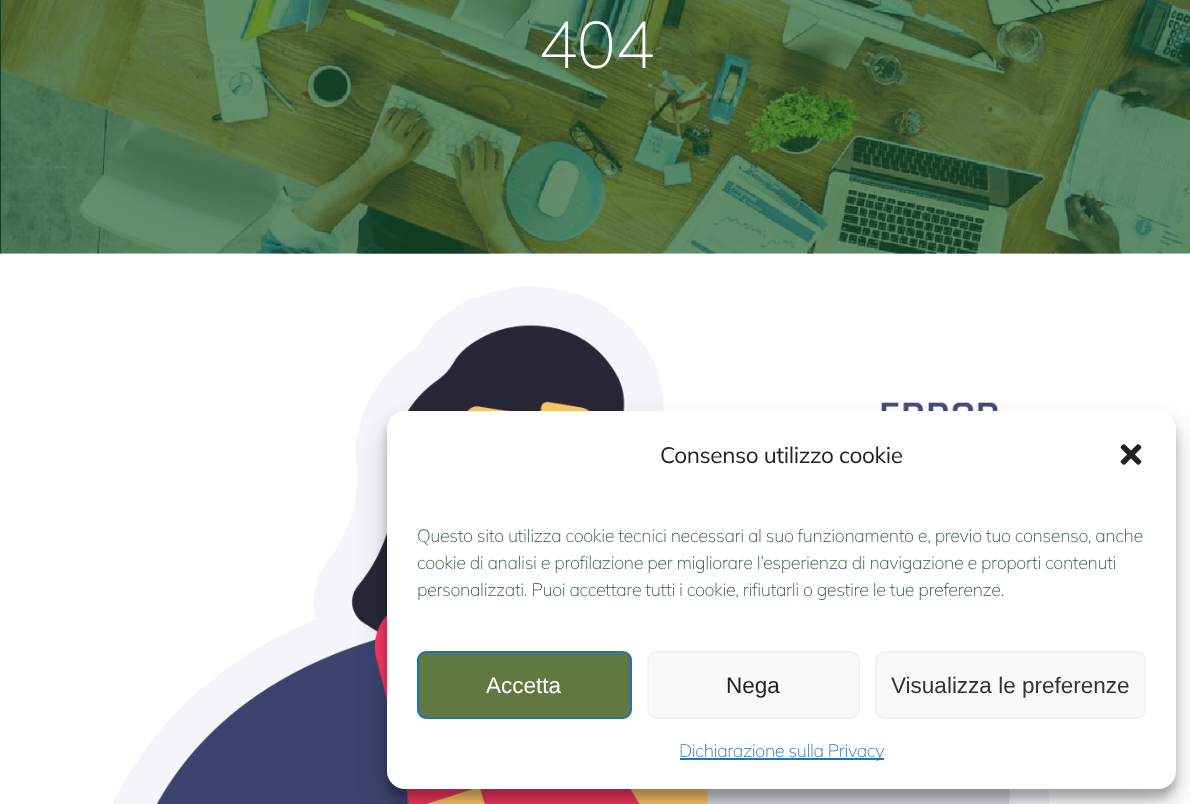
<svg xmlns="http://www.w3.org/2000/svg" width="1190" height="804">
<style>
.a{font:200 66px Mulish;letter-spacing:-1px;fill:#fff}
.b{font:22.5px Mulish;letter-spacing:-0.38px;fill:#222}
.c{font:200 18px Mulish;letter-spacing:-0.38px;fill:#285a38}
.d{font:22.5px Liberation Sans;fill:#fff}
.e{font:22.5px Liberation Sans;fill:#222}
.f{font:22.5px Liberation Sans;fill:#333}
.g{font:200 18px Mulish;letter-spacing:-0.38px;fill:#1e73be}
</style>
<rect width="100%" height="100%" fill="#fff"/>
<image href="1.png" x="0" y="0" width="1190" height="254"/>
<image href="2.png" x="113" y="286" width="937" height="518"/>
<rect fill="#0000003b" filter="blur(4.5px)" x="387" y="420" width="789" height="378" rx="18"/>
<rect fill="#00000030" filter="blur(15px)" x="387" y="426" width="789" height="378" rx="18"/>
<rect fill="#fff" x="387" y="411" width="789" height="378" rx="18"/>
<image href="3.png" x="1120" y="444" width="22" height="21"/>
<rect fill="#617941" stroke="#1e73be" stroke-width="2" x="418" y="652" width="213" height="66" rx="8"/>
<rect fill="#f9f9f9" stroke="#f2f2f2" stroke-width="2" x="648" y="652" width="211" height="66" rx="8"/>
<rect fill="#f9f9f9" stroke="#f2f2f2" stroke-width="2" x="876" y="652" width="269" height="66" rx="8"/>
<path fill="#1e73be" d="M680 758h204v2H680z"/>
<text class="a" x="538" y="68">404</text>
<text class="b" x="660" y="463">Consenso utilizzo cookie</text>
<text class="c" x="417" y="542">Questo sito utilizza cookie tecnici necessari al suo funzionamento e, previo tuo consenso, anche</text>
<text class="c" x="417" y="569">cookie di analisi e profilazione per migliorare l’esperienza di navigazione e proporti contenuti</text>
<text class="c" x="417" y="596">personalizzati. Puoi accettare tutti i cookie, rifiutarli o gestire le tue preferenze.</text>
<text class="d" x="486" y="693">Accetta</text>
<text class="e" x="726" y="693">Nega</text>
<text class="f" x="891" y="693">Visualizza le preferenze</text>
<text class="g" x="679" y="757">Dichiarazione sulla Privacy</text>
</svg>
